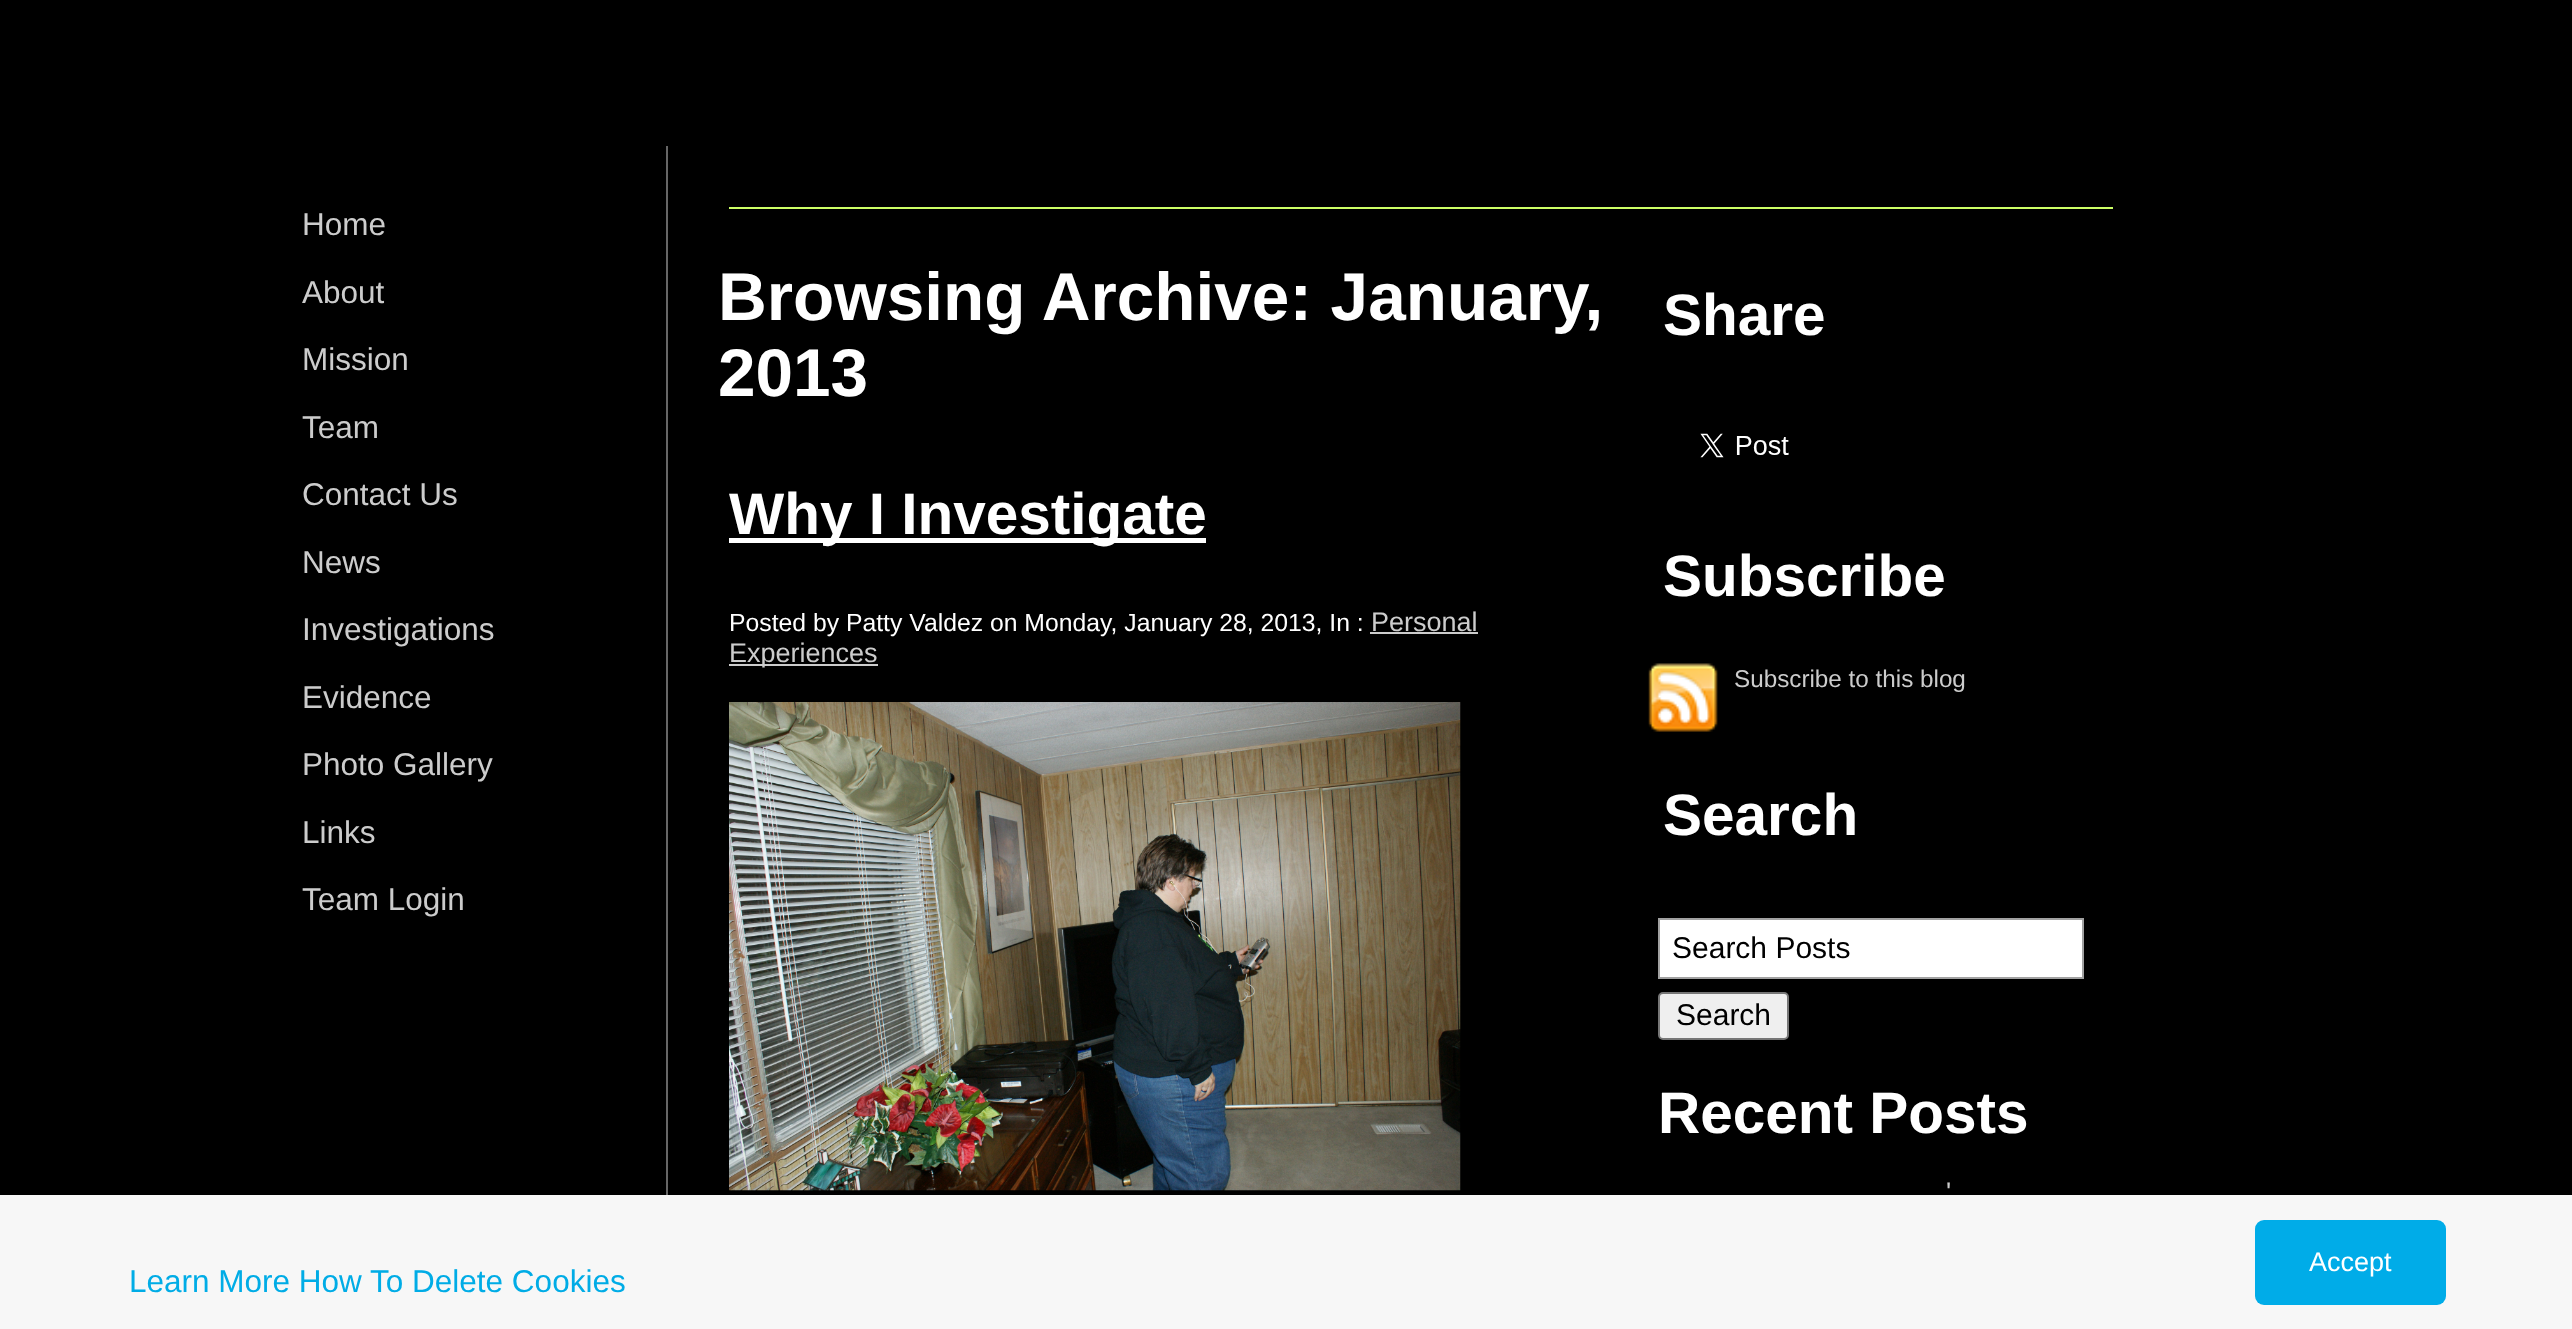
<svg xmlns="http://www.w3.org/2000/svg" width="2572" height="1329">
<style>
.a{font:31.5px Liberation Sans;fill:#ccc}
.b{font:bold 67.5px Liberation Sans;fill:#fff}
.c{font:bold 58.5px Liberation Sans;fill:#fff}
.d{font:24.75px Liberation Sans;fill:#fff}
.e{font:27px Liberation Sans;fill:#ccc}
.f{font:24.25px Liberation Sans;fill:#ccc}
.g{font:30px Liberation Sans;fill:#000}
.h{font:27px Liberation Sans;fill:#fff}
.i{font:31.5px Liberation Sans;fill:#00ace6}
</style>
<rect width="100%" height="100%" fill="#000"/>
<path fill="#666" d="M666 146h2v1049H666z"/>
<path fill="#cf6" d="M729 207h1384v2H729z"/>
<path fill="#fff" d="M729 538h477v5H729z"/>
<path fill="#ccc" d="M1370 632h108v2H1370z"/>
<path fill="#ccc" d="M729 664h149v2H729z"/>
<image href="1.png" x="729" y="702" width="732" height="489"/>
<image href="2.png" x="1700" y="433" width="89" height="25"/>
<image href="3.png" x="1648" y="663" width="70" height="69"/>
<path fill="#fff" stroke="#a1a1a1" stroke-width="2" d="M1659 919h424v59H1659z"/>
<rect fill="#efefef" stroke="#767676" stroke-width="2" x="1659" y="993" width="129" height="46" rx="4"/>
<path fill="#f7f7f7" d="M0 1195h2572v134H0z"/>
<rect fill="#00ace8" x="2255" y="1220" width="191" height="85" rx="9"/>
<text class="a" x="302" y="235">Home</text>
<text class="a" x="302" y="303">About</text>
<text class="a" x="302" y="370">Mission</text>
<text class="a" x="302" y="438">Team</text>
<text class="a" x="302" y="505">Contact Us</text>
<text class="a" x="302" y="573">News</text>
<text class="a" x="302" y="640">Investigations</text>
<text class="a" x="302" y="708">Evidence</text>
<text class="a" x="302" y="775">Photo Gallery</text>
<text class="a" x="302" y="843">Links</text>
<text class="a" x="302" y="910">Team Login</text>
<text class="b" x="718" y="320">Browsing Archive: January,</text>
<text class="b" x="718" y="396">2013</text>
<text class="c" x="729" y="534">Why I Investigate</text>
<text class="d" x="729" y="631">Posted by Patty Valdez on Monday, January 28, 2013, In :</text>
<text class="e" x="1371" y="631">Personal</text>
<text class="e" x="729" y="662">Experiences</text>
<text class="c" x="1663" y="335">Share</text>
<text class="c" x="1663" y="596">Subscribe</text>
<text class="f" x="1734" y="687">Subscribe to this blog</text>
<text class="c" x="1663" y="835">Search</text>
<text class="g" x="1672" y="958">Search Posts</text>
<text class="g" x="1676" y="1025">Search</text>
<text class="c" x="1658" y="1133">Recent Posts</text>
<text class="e" x="1946" y="1201">'</text>
<text class="h" x="2309" y="1271">Accept</text>
<text class="i" x="129" y="1292">Learn More How To Delete Cookies</text>
</svg>
